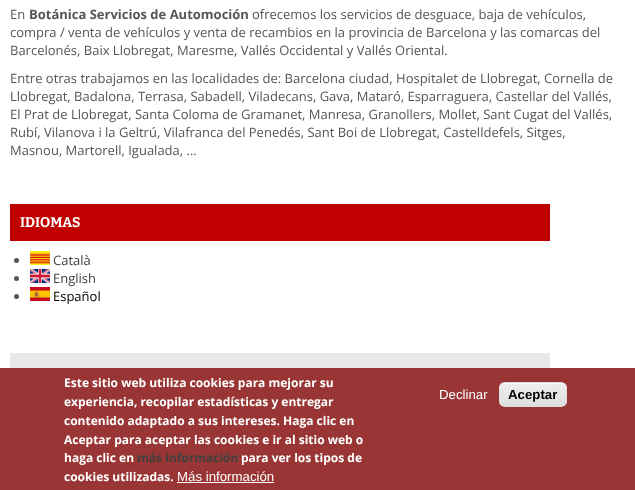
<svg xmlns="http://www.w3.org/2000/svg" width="635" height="490">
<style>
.a{font:13px Open Sans;fill:#555}
.b{font:bold 13px Open Sans;fill:#555}
.c{font:bold 14px Bitter;fill:#fff}
.d{font:13px Open Sans;fill:#404040}
.e{font:13px Open Sans;fill:#000}
.f{font:bold 12px Open Sans;fill:#fff}
.g{font:bold 12px Open Sans;fill:#404040}
.h{font:13.25px Liberation Sans;fill:#fff}
.i{font:bold 13.25px Liberation Sans;fill:#000}
</style>
<defs>
<clipPath id="clip1"><rect x="499" y="382" width="68" height="25" rx="6"/></clipPath>
<linearGradient id="g1" gradientUnits="userSpaceOnUse" x1="533" y1="383" x2="533" y2="406"><stop offset="0.05" stop-color="#ededed"/><stop offset="1" stop-color="#dfdfdf"/></linearGradient>
</defs>
<rect width="100%" height="100%" fill="#fff"/>
<path fill="#c00000" d="M10 204h540v37H10z"/>
<circle fill="#555" cx="16.5" cy="260.5" r="2.5"/>
<image href="1.png" x="30" y="251" width="20" height="14"/>
<circle fill="#555" cx="16.5" cy="278.5" r="2.5"/>
<image href="2.png" x="30" y="269" width="20" height="14"/>
<circle fill="#555" cx="16.5" cy="296.5" r="2.5"/>
<image href="3.png" x="30" y="287" width="20" height="14"/>
<image href="4.png" x="10" y="353" width="540" height="15"/>
<path fill="#993635" d="M0 368h635v122H0z"/>
<path fill="#fff" d="M177 482h97v1H177z"/>
<g clip-path="url(#clip1)">
<path fill="url(#g1)" d="M499 383h68v23H499z"/>
</g>
<path fill="#fff" d="M505 384h56c3 0 5 2 5 5c0-8-8-6-14-6h-38c-6 0-14-2-14 6c0-3 2-5 5-5z"/>
<rect fill="none" stroke="#dcdcdc" x="499.5" y="382.5" width="67" height="24" rx="5.5"/>
<text class="a" x="10" y="19">En</text>
<text class="b" x="29" y="19">Botánica Servicios de Automoción</text>
<text class="a" x="252" y="19">ofrecemos los servicios de desguace, baja de vehículos,</text>
<text class="a" x="10" y="37">compra / venta de vehículos y venta de recambios en la provincia de Barcelona y las comarcas del</text>
<text class="a" x="10" y="55">Barcelonés, Baix Llobregat, Maresme, Vallés Occidental y Vallés Oriental.</text>
<text class="a" x="10" y="83">Entre otras trabajamos en las localidades de: Barcelona ciudad, Hospitalet de Llobregat, Cornella de</text>
<text class="a" x="10" y="101">Llobregat, Badalona, Terrasa, Sabadell, Viladecans, Gava, Mataró, Esparraguera, Castellar del Vallés,</text>
<text class="a" x="10" y="119">El Prat de Llobregat, Santa Coloma de Gramanet, Manresa, Granollers, Mollet, Sant Cugat del Vallés,</text>
<text class="a" x="10" y="137">Rubí, Vilanova i la Geltrú, Vilafranca del Penedés, Sant Boi de Llobregat, Castelldefels, Sitges,</text>
<text class="a" x="10" y="155">Masnou, Martorell, Igualada, ...</text>
<text class="c" x="20" y="227">IDIOMAS</text>
<text class="d" x="53" y="265">Català</text>
<text class="d" x="53" y="283">English</text>
<text class="e" x="53" y="301">Español</text>
<text class="f" x="64" y="387">Este sitio web utiliza cookies para mejorar su</text>
<text class="f" x="64" y="406">experiencia, recopilar estadísticas y entregar</text>
<text class="f" x="64" y="425">contenido adaptado a sus intereses. Haga clic en</text>
<text class="f" x="64" y="444">Aceptar para aceptar las cookies e ir al sitio web o</text>
<text class="f" x="64" y="462">haga clic en</text>
<text class="g" x="137" y="462">más información</text>
<text class="f" x="241" y="462">para ver los tipos de</text>
<text class="f" x="64" y="481">cookies utilizadas.</text>
<text class="h" x="177" y="481">Más información</text>
<text class="h" x="439" y="399">Declinar</text>
<text class="i" x="508" y="399">Aceptar</text>
</svg>
